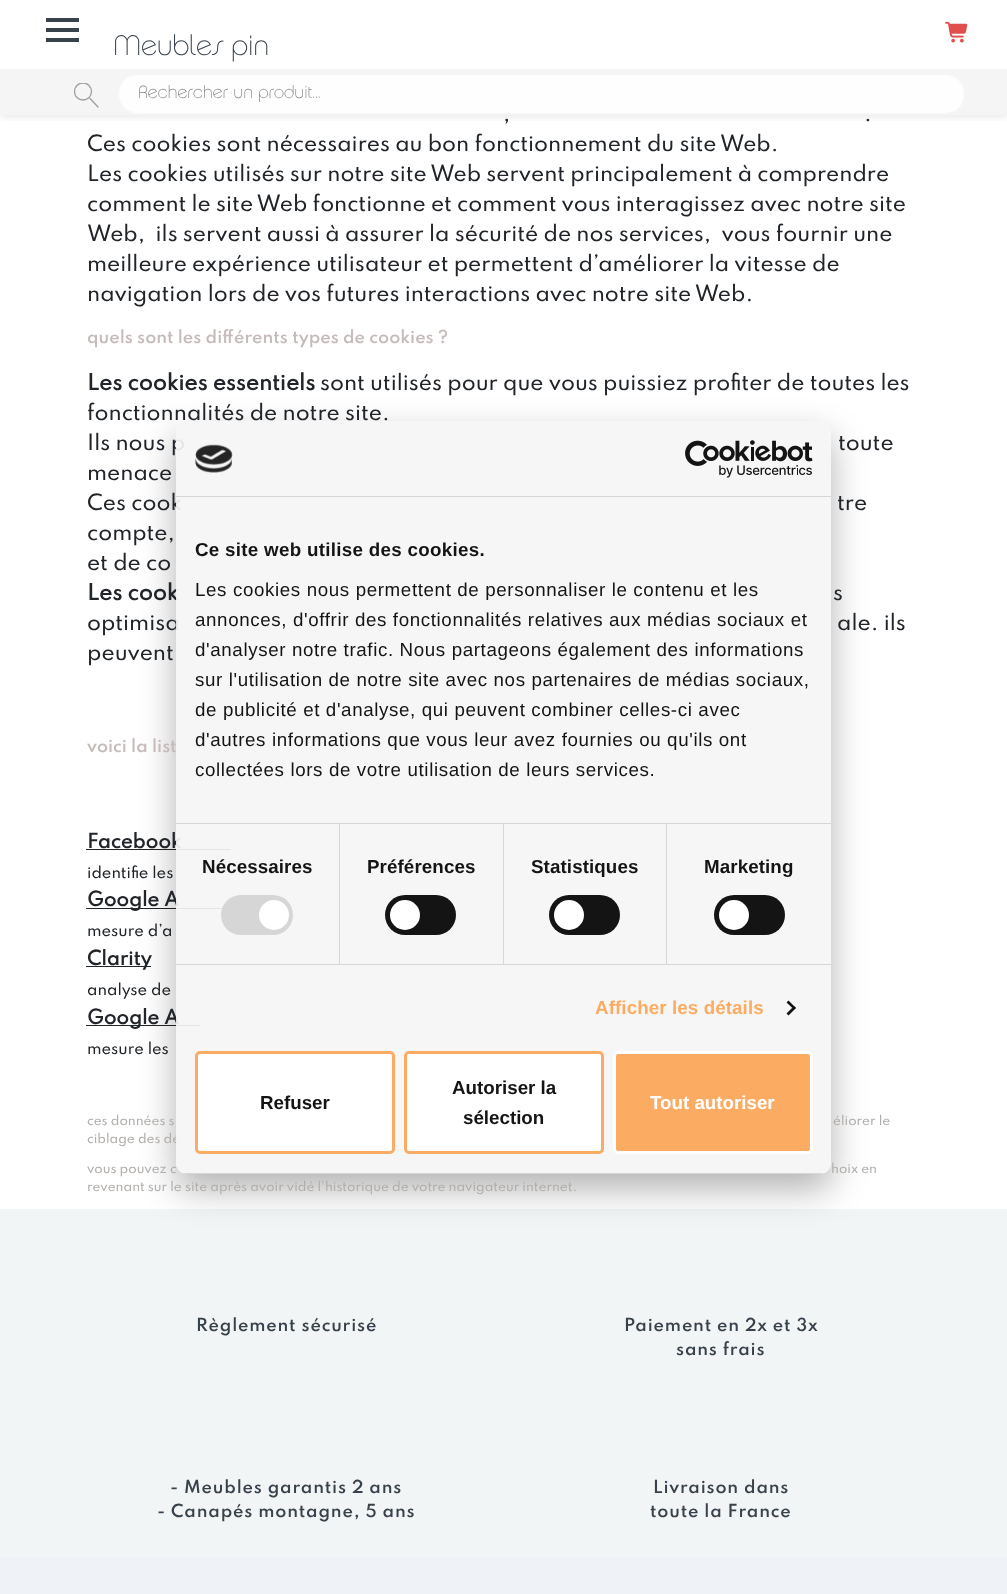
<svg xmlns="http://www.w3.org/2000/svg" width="1007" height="1594">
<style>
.a{font:500 28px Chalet;fill:#38424c}
.b{font:500 17.5px Chalet;fill:#848484}
.c{font:500 20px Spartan;fill:#212529}
.d{font:600 16px Spartan;fill:#c7baba}
.e{font:bold 20px Spartan;fill:#212529}
.f{font:bold 18px Spartan;fill:#212529}
.g{font:500 14.5px Spartan;fill:#212529}
.h{font:500 12px Spartan;fill:#b1aeab}
.i{font:bold 18.75px Liberation Sans;letter-spacing:0.3px;fill:#141414}
.j{font:18.75px Liberation Sans;letter-spacing:0.62px;fill:#141414}
.k{font:bold 18.75px Liberation Sans;letter-spacing:0.1px;fill:#141414}
.l{font:bold 18.75px Liberation Sans;letter-spacing:0.1px;fill:#fbac62}
.m{font:bold 18.75px Liberation Sans;fill:#141414}
.n{font:bold 18.75px Liberation Sans;fill:#fff}
.o{font:600 16px Spartan;letter-spacing:0.8px;fill:#38424c}
</style>
<defs>
<clipPath id="clip1"><path d="M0 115h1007v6H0z"/></clipPath>
<clipPath id="clip2"><path d="M74 83h25v25H74z"/></clipPath>
<clipPath id="clip3"><path d="M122 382h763v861h-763zm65 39h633c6 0 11 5 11 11v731c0 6-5 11-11 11h-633c-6 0-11-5-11-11v-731c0-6 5-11 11-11z" clip-rule="evenodd"/></clipPath>
<clipPath id="clip4"><rect x="176" y="421" width="655" height="753" rx="11"/></clipPath>
</defs>
<rect width="100%" height="100%" fill="#fff"/>
<g clip-path="url(#clip1)">
<path fill="#0000001c" filter="blur(5px)" d="M0 69h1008v47H0z"/>
</g>
<path fill="#fff" d="M0 62h1007v6H0z"/>
<path fill="#38424c" d="M46 38h33v4H46z"/>
<path fill="#38424c" d="M46 18h33v4H46z"/>
<path fill="#38424c" d="M46 28h33v4H46z"/>
<image href="1.png" x="945" y="21" width="23" height="22"/>
<path fill="#f4f4f4e6" d="M0 69h1007v46H0z"/>
<g clip-path="url(#clip2)">
<circle fill="none" stroke="#a0a0a0" stroke-width="1.3" cx="83" cy="91.5" r="8.5"/>
</g>
<path fill="none" stroke="#959595e6" stroke-width="1.3" stroke-linecap="round" d="M90 98.5l8 8.5"/>
<rect fill="#fefefe" x="118" y="74" width="847" height="40" rx="20"/>
<rect fill="none" stroke="#f4f4f4e6" x="118.5" y="74.5" width="846" height="39" rx="19.5"/>
<path fill="#212529" d="M86 849h145v1H86z"/>
<path fill="#212529" d="M86 908h137v1H86z"/>
<path fill="#212529" d="M86 966h65v1H86z"/>
<path fill="#212529" d="M86 1025h114v1H86z"/>
<path fill="#f2f5f5" d="M0 1209h1007v349H0z"/>
<g clip-path="url(#clip3)">
<rect fill="#0000004d" filter="blur(17.5px)" x="176" y="436" width="655" height="753" rx="11"/>
</g>
<path fill="#eff3f8" d="M0 1558h1007v36H0z"/>
<text class="a" x="113" y="55">Meubles pin</text>
<text class="b" x="138" y="98">Rechercher un produit...</text>
<text class="c" x="503" y="121">,</text>
<text class="c" x="864" y="121">.</text>
<text class="c" x="87" y="151">Ces cookies sont nécessaires au bon fonctionnement du site Web.</text>
<text class="c" x="87" y="181">Les cookies utilisés sur notre site Web servent principalement à comprendre</text>
<text class="c" x="87" y="211">comment le site Web fonctionne et comment vous interagissez avec notre site</text>
<text class="c" xml:space="preserve" x="87" y="241">Web,  ils servent aussi à assurer la sécurité de nos services,  vous fournir une</text>
<text class="c" x="87" y="271">meilleure expérience utilisateur et permettent d’améliorer la vitesse de</text>
<text class="c" x="87" y="301">navigation lors de vos futures interactions avec notre site Web.</text>
<text class="d" x="87" y="343">quels sont les différents types de cookies ?</text>
<text class="e" x="87" y="390">Les cookies essentiels</text>
<text class="c" x="320" y="390">sont utilisés pour que vous puissiez profiter de toutes les</text>
<text class="c" x="87" y="420">fonctionnalités de notre site.</text>
<text class="c" x="87" y="450">Ils nous p</text>
<text class="c" x="838" y="450">toute</text>
<text class="c" x="87" y="480">menace</text>
<text class="c" x="87" y="510">Ces cook</text>
<text class="c" x="837" y="510">tre</text>
<text class="c" x="87" y="540">compte,</text>
<text class="c" x="87" y="570">et de co</text>
<text class="e" x="87" y="600">Les cook</text>
<text class="c" x="833" y="600">s</text>
<text class="c" x="87" y="630">optimisa</text>
<text class="c" x="837" y="630">ale. ils</text>
<text class="c" x="87" y="660">peuvent</text>
<text class="d" x="87" y="752">voici la list</text>
<text class="f" x="87" y="848">Facebook</text>
<text class="g" x="87" y="878">identifie les</text>
<text class="f" x="87" y="906">Google A</text>
<text class="g" x="87" y="936">mesure d’a</text>
<text class="f" x="87" y="965">Clarity</text>
<text class="g" x="87" y="995">analyse de</text>
<text class="f" x="87" y="1024">Google A</text>
<text class="g" x="87" y="1054">mesure les</text>
<text class="h" x="87" y="1125">ces données s</text>
<text class="h" x="833" y="1125">éliorer le</text>
<text class="h" x="87" y="1143">ciblage des dé</text>
<text class="h" x="87" y="1173">vous pouvez c</text>
<text class="h" x="831" y="1173">hoix en</text>
<text class="h" x="87" y="1191">revenant sur le site après avoir vidé l’historique de votre navigateur internet.</text>
<rect fill="#f5f5f5eb" x="176" y="421" width="655" height="753" rx="11"/>
<path fill="#d6d6d6" d="M176 496h655v1H176z"/>
<image href="2.png" x="195" y="444" width="38" height="29"/>
<image href="3.png" x="685" y="440" width="128" height="38"/>
<path fill="#d6d6d6" d="M176 823h655v1H176z"/>
<text class="i" x="195" y="556">Ce site web utilise des cookies.</text>
<text class="j" x="195" y="596">Les cookies nous permettent de personnaliser le contenu et les</text>
<text class="j" x="195" y="626">annonces, d'offrir des fonctionnalités relatives aux médias sociaux et</text>
<text class="j" x="195" y="656">d'analyser notre trafic. Nous partageons également des informations</text>
<text class="j" x="195" y="686">sur l'utilisation de notre site avec nos partenaires de médias sociaux,</text>
<text class="j" x="195" y="716">de publicité et d'analyse, qui peuvent combiner celles-ci avec</text>
<text class="j" x="195" y="746">d'autres informations que vous leur avez fournies ou qu'ils ont</text>
<text class="j" x="195" y="776">collectées lors de votre utilisation de leurs services.</text>
<path fill="#d6d6d6" d="M176 964h655v1H176z"/>
<path fill="#d6d6d6" d="M339 824h1v140H339z"/>
<text class="k" x="202" y="873">Nécessaires</text>
<rect fill="#d6d6d6" x="221" y="895" width="72" height="40" rx="20"/>
<circle fill="#fff" cx="274" cy="915" r="15"/>
<path fill="#d6d6d6" d="M503 824h1v140H503z"/>
<text class="k" x="367" y="873">Préférences</text>
<rect fill="#141414" x="385" y="895" width="71" height="40" rx="20"/>
<circle fill="#fff" cx="405" cy="915" r="15"/>
<path fill="#d6d6d6" d="M666 824h1v140H666z"/>
<text class="k" x="531" y="873">Statistiques</text>
<rect fill="#141414" x="549" y="895" width="71" height="40" rx="20"/>
<circle fill="#fff" cx="569" cy="915" r="15"/>
<text class="k" x="704" y="873">Marketing</text>
<rect fill="#141414" x="714" y="895" width="71" height="40" rx="20"/>
<circle fill="#fff" cx="734" cy="915" r="15"/>
<text class="l" x="595" y="1014">Afficher les détails</text>
<path fill="#141414" d="M788.5 1000.5l7.5 7.5l-2 1.5l-7.5-7z"/>
<path fill="#141414" d="M794 1006l2 2l-7.5 7.5l-2-2z"/>
<g clip-path="url(#clip4)">
<path fill="#d6d6d6" d="M176 1173h655v1H176z"/>
</g>
<rect fill="#fff" stroke="#fbac62" stroke-width="3" x="196.5" y="1052.5" width="197" height="100" rx="3.5"/>
<text class="m" x="260" y="1109">Refuser</text>
<rect fill="#fff" stroke="#fbac62" stroke-width="3" x="405.5" y="1052.5" width="197" height="100" rx="3.5"/>
<text class="m" x="452" y="1094">Autoriser la</text>
<text class="m" x="463" y="1124">sélection</text>
<rect fill="#fbac62" stroke="#fff" stroke-width="3" x="614.5" y="1052.5" width="197" height="100" rx="3.5"/>
<text class="n" x="650" y="1109">Tout autoriser</text>
<text class="o" x="196" y="1331">Règlement sécurisé</text>
<text class="o" x="624" y="1331">Paiement en 2x et 3x</text>
<text class="o" x="676" y="1355">sans frais</text>
<text class="o" x="170" y="1493">- Meubles garantis 2 ans</text>
<text class="o" x="157" y="1517">- Canapés montagne, 5 ans</text>
<text class="o" x="653" y="1493">Livraison dans</text>
<text class="o" x="650" y="1517">toute la France</text>
</svg>
